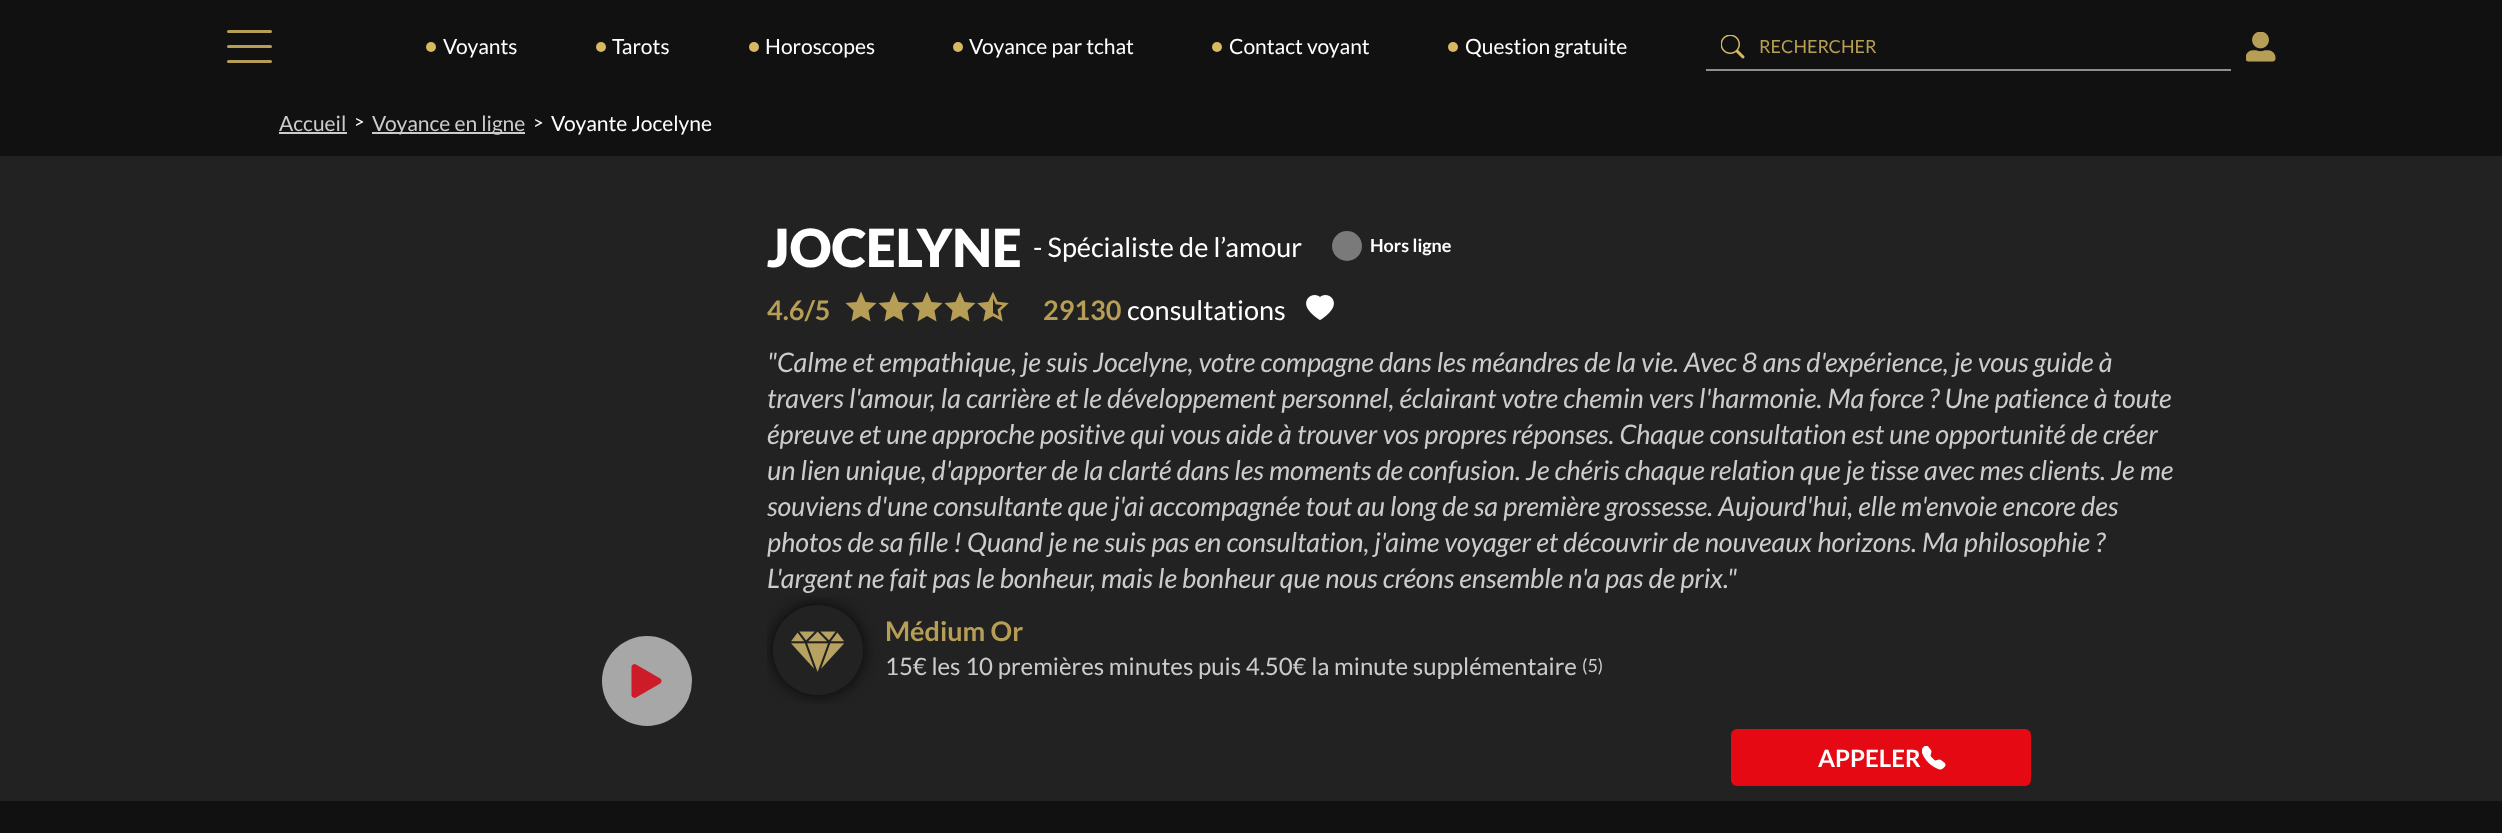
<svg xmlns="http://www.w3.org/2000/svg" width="2502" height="833">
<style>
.a{font:21px Lato;fill:#fff}
.b{font:18px Lato;fill:#b79e56}
.c{font:21px Lato;fill:#ccc}
.d{font:18px Lato;fill:#fff}
.e{font:900 52.5px Lato;fill:#fff}
.f{font:27px Lato;fill:#fff}
.g{font:bold 18px Lato;fill:#fff}
.h{font:bold 27px Lato;fill:#b79e56}
.i{font:italic 27px Lato;fill:#ccc}
.j{font:24px Lato;fill:#ccc}
.k{font:18px Lato;fill:#ccc}
.l{font:bold 24px Lato;fill:#fff}
</style>
<defs>
<clipPath id="clip1"><rect x="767" y="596" width="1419" height="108" rx="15"/></clipPath>
<clipPath id="clip2"><path d="M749 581h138v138h-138zm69 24c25 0 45 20 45 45c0 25-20 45-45 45c-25 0-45-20-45-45c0-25 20-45 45-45z" clip-rule="evenodd"/></clipPath>
</defs>
<rect width="100%" height="100%" fill="#111"/>
<rect fill="#b79e56" x="227" y="30" width="45" height="3" rx="1.5"/>
<rect fill="#b79e56" x="227" y="45" width="45" height="3" rx="1.5"/>
<rect fill="#b79e56" x="227" y="60" width="45" height="3" rx="1.5"/>
<circle fill="#d8b860" cx="431" cy="47" r="5"/>
<circle fill="#d8b860" cx="601" cy="47" r="5"/>
<circle fill="#d8b860" cx="754" cy="47" r="5"/>
<circle fill="#d8b860" cx="958" cy="47" r="5"/>
<circle fill="#d8b860" cx="1217" cy="47" r="5"/>
<circle fill="#d8b860" cx="1453" cy="47" r="5"/>
<path fill="#8f8f8f" d="M1706 69h525v2H1706z"/>
<image href="1.png" x="1721" y="35" width="24" height="24"/>
<image href="2.png" x="2246" y="32" width="30" height="30"/>
<path fill="#ccc" d="M279 132h68v2H279z"/>
<path fill="#ccc" d="M372 132h153v2H372z"/>
<path fill="#222" d="M0 156h2502v645H0z"/>
<circle fill="#a7a7a7" cx="647" cy="681" r="45"/>
<image href="3.png" x="631" y="664" width="31" height="34"/>
<circle fill="#7a7a7a" cx="1347" cy="246" r="15"/>
<path fill="#b79e56" d="M861 316l-9.5 5.5l2-11l-8-7.5l11-1l4.5-10.5l4.5 10.5l11 1l-8 7.5l2 11z"/>
<path fill="#b79e56" d="M894 316l-9.5 5.5l2-11l-8-7.5l11-1l4.5-10.5l4.5 10.5l11 1l-8 7.5l2 11z"/>
<path fill="#b79e56" d="M927 316l-9.5 5.5l2-11l-8-7.5l11-1l4.5-10.5l4.5 10.5l11 1l-8 7.5l2 11z"/>
<path fill="#b79e56" d="M960 316l-9.5 5.5l2-11l-8-7.5l11-1l4.5-10.5l4.5 10.5l11 1l-8 7.5l2 11z"/>
<image href="4.png" x="977" y="292" width="32" height="30"/>
<image href="5.png" x="1306" y="295" width="28" height="25"/>
<g clip-path="url(#clip1)">
<g clip-path="url(#clip2)">
<rect fill="#000000cc" filter="blur(7.5px)" x="773" y="605" width="90" height="90" rx="45"/>
</g>
</g>
<image href="6.png" x="791" y="631" width="53" height="41"/>
<rect fill="#e50913" x="1731" y="729" width="300" height="57" rx="6"/>
<image href="7.png" x="1922" y="746" width="24" height="24"/>
<text class="a" x="443" y="54">Voyants</text>
<text class="a" x="612" y="54">Tarots</text>
<text class="a" x="765" y="54">Horoscopes</text>
<text class="a" x="969" y="54">Voyance par tchat</text>
<text class="a" x="1229" y="54">Contact voyant</text>
<text class="a" x="1465" y="54">Question gratuite</text>
<text class="b" x="1759" y="53">RECHERCHER</text>
<text class="c" x="279" y="131">Accueil</text>
<text class="d" x="354" y="128">&gt;</text>
<text class="c" x="372" y="131">Voyance en ligne</text>
<text class="d" x="533" y="129">&gt;</text>
<text class="a" x="551" y="131">Voyante Jocelyne</text>
<text class="e" x="767" y="267">JOCELYNE</text>
<text class="f" x="1033" y="257">- Spécialiste de l’amour</text>
<text class="g" x="1370" y="252">Hors ligne</text>
<text class="h" x="767" y="320">4.6/5</text>
<text class="h" x="1043" y="320">29130</text>
<text class="f" x="1127" y="320">consultations</text>
<text class="i" x="767" y="372">"Calme et empathique, je suis Jocelyne, votre compagne dans les méandres de la vie. Avec 8 ans d'expérience, je vous guide à</text>
<text class="i" x="767" y="408">travers l'amour, la carrière et le développement personnel, éclairant votre chemin vers l'harmonie. Ma force ? Une patience à toute</text>
<text class="i" x="767" y="444">épreuve et une approche positive qui vous aide à trouver vos propres réponses. Chaque consultation est une opportunité de créer</text>
<text class="i" x="767" y="480">un lien unique, d'apporter de la clarté dans les moments de confusion. Je chéris chaque relation que je tisse avec mes clients. Je me</text>
<text class="i" x="767" y="516">souviens d'une consultante que j'ai accompagnée tout au long de sa première grossesse. Aujourd'hui, elle m'envoie encore des</text>
<text class="i" x="767" y="552">photos de sa fille ! Quand je ne suis pas en consultation, j'aime voyager et découvrir de nouveaux horizons. Ma philosophie ?</text>
<text class="i" x="767" y="588">L'argent ne fait pas le bonheur, mais le bonheur que nous créons ensemble n'a pas de prix."</text>
<text class="h" x="885" y="641">Médium Or</text>
<text class="j" x="885" y="675">15€ les 10 premières minutes puis 4.50€ la minute supplémentaire</text>
<text class="k" x="1582" y="672">(5)</text>
<text class="l" x="1818" y="767">APPELER</text>
</svg>
